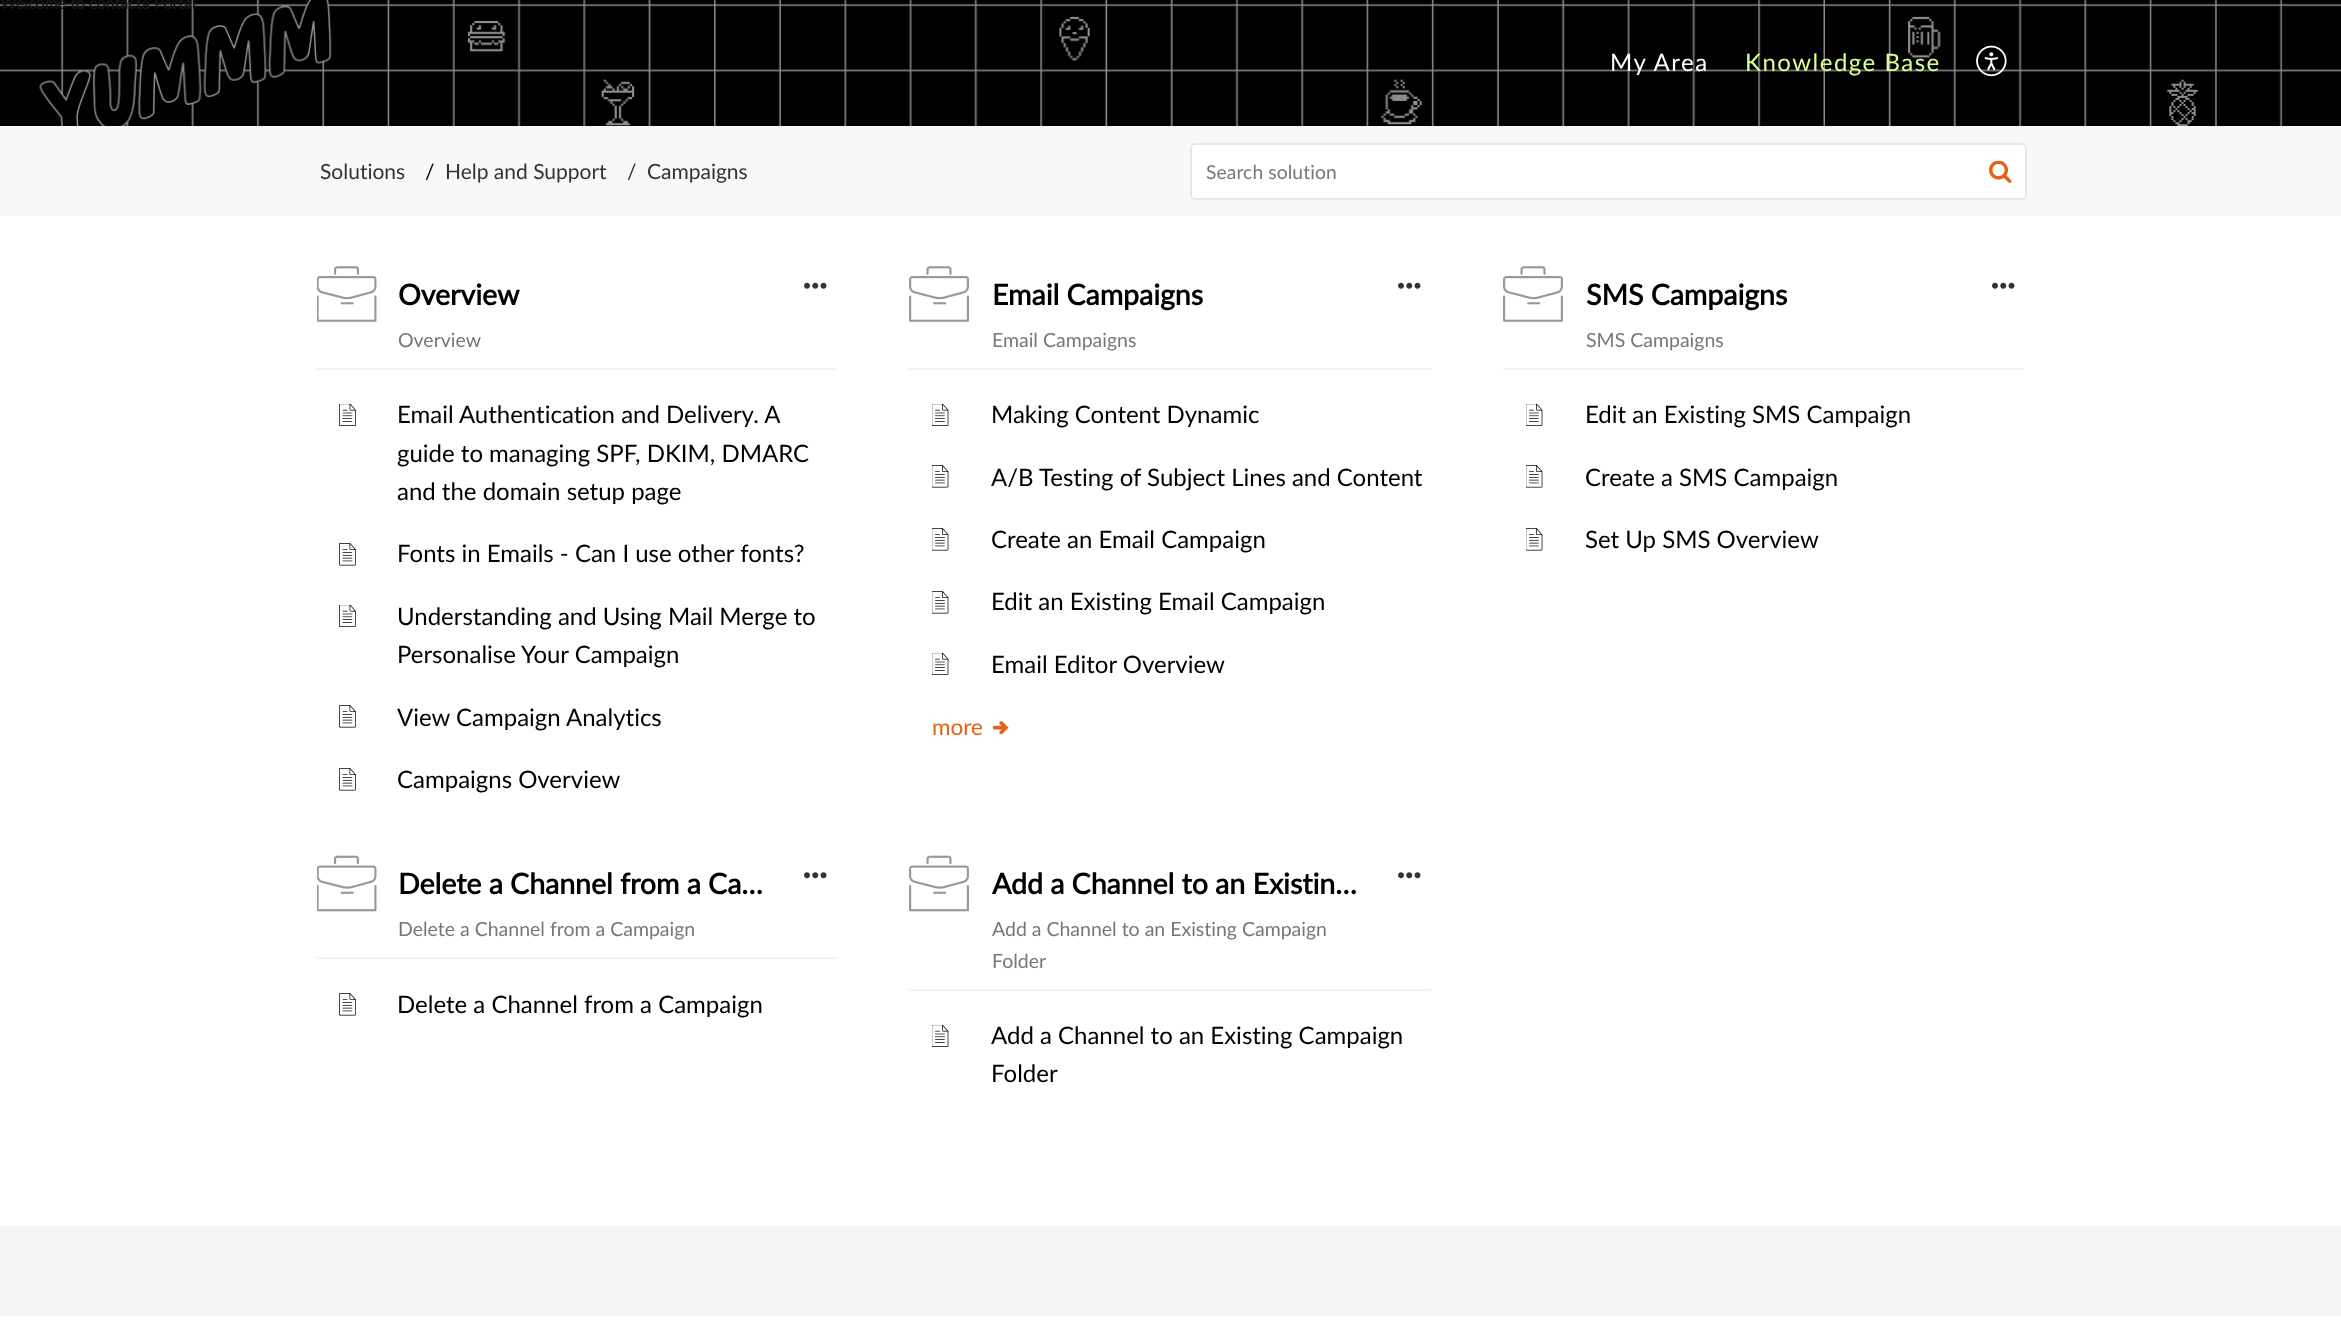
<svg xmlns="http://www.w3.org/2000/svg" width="2341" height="1343">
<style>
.a{font:bold 16px Lato;fill:#171717}
.b{font:24px Lato;letter-spacing:1.5px;fill:#fff}
.c{font:24px Lato;letter-spacing:1.5px;fill:#dcff93}
.d{font:21px Lato;fill:#333}
.e{font:21px Lato;fill:#000}
.f{font:19.25px Lato;letter-spacing:0.1px;fill:#777}
.g{font:bold 28.5px Lato;fill:#000}
.h{font:19.5px Lato;fill:#777}
.i{font:24px Lato;fill:#000}
.j{font:22.5px Lato;fill:#e46317}
</style>
<rect width="100%" height="100%" fill="#fff"/>
<image href="1.png" x="0" y="0" width="2341" height="126"/>
<image href="2.png" x="1976" y="45" width="31" height="32"/>
<path fill="#f8f8f8" d="M0 126h2341v90H0z"/>
<rect fill="#fff" stroke="#e5e8ea" stroke-width="2" x="1191" y="144" width="835" height="55" rx="4"/>
<image href="3.png" x="1989" y="161" width="23" height="22"/>
<path fill="#f2f2f2" d="M317 368h520v2H317z"/>
<image href="4.png" x="317" y="266" width="60" height="56"/>
<image href="5.png" x="804" y="282" width="23" height="7"/>
<image href="6.png" x="339" y="404" width="17" height="22"/>
<image href="7.png" x="339" y="543" width="17" height="23"/>
<image href="6.png" x="339" y="605" width="17" height="22"/>
<image href="7.png" x="339" y="705" width="17" height="23"/>
<image href="7.png" x="339" y="768" width="17" height="23"/>
<path fill="#f2f2f2" d="M909 368h522v2H909z"/>
<image href="8.png" x="909" y="266" width="60" height="56"/>
<image href="5.png" x="1398" y="282" width="23" height="7"/>
<image href="9.png" x="932" y="404" width="17" height="22"/>
<image href="10.png" x="932" y="465" width="17" height="23"/>
<image href="10.png" x="932" y="528" width="17" height="23"/>
<image href="10.png" x="932" y="591" width="17" height="23"/>
<image href="9.png" x="932" y="653" width="17" height="22"/>
<image href="11.png" x="992" y="721" width="17" height="14"/>
<path fill="#f2f2f2" d="M1503 368h521v2H1503z"/>
<image href="8.png" x="1503" y="266" width="60" height="56"/>
<image href="5.png" x="1992" y="282" width="23" height="7"/>
<image href="9.png" x="1526" y="404" width="17" height="22"/>
<image href="10.png" x="1526" y="465" width="17" height="23"/>
<image href="10.png" x="1526" y="528" width="17" height="23"/>
<path fill="#f2f2f2" d="M317 957h520v2H317z"/>
<image href="12.png" x="317" y="855" width="60" height="57"/>
<image href="13.png" x="804" y="872" width="23" height="7"/>
<image href="7.png" x="339" y="993" width="17" height="23"/>
<path fill="#f2f2f2" d="M909 989h522v2H909z"/>
<image href="14.png" x="909" y="855" width="60" height="57"/>
<image href="13.png" x="1398" y="872" width="23" height="7"/>
<image href="9.png" x="932" y="1025" width="17" height="22"/>
<path fill="#f5f5f5" d="M0 1226h2341v90H0z"/>
<text class="a" x="0" y="9">Welcome to</text>
<text class="a" x="89" y="9">contacta</text>
<text class="a" x="154" y="9">Portal</text>
<text class="b" x="1610" y="71">My Area</text>
<text class="c" x="1745" y="71">Knowledge Base</text>
<text class="d" x="320" y="179">Solutions</text>
<text class="e" x="425" y="179">/</text>
<text class="d" x="445" y="179">Help and Support</text>
<text class="d" x="627" y="179">/</text>
<text class="d" x="647" y="179">Campaigns</text>
<text class="f" x="1206" y="179">Search solution</text>
<text class="g" x="398" y="305">Overview</text>
<text class="h" x="398" y="347">Overview</text>
<text class="i" x="397" y="423">Email Authentication and Delivery. A</text>
<text class="i" x="397" y="462">guide to managing SPF, DKIM, DMARC</text>
<text class="i" x="397" y="500">and the domain setup page</text>
<text class="i" x="397" y="562">Fonts in Emails - Can I use other fonts?</text>
<text class="i" x="397" y="625">Understanding and Using Mail Merge to</text>
<text class="i" x="397" y="663">Personalise Your Campaign</text>
<text class="i" x="397" y="726">View Campaign Analytics</text>
<text class="i" x="397" y="788">Campaigns Overview</text>
<text class="g" x="992" y="305">Email Campaigns</text>
<text class="h" x="992" y="347">Email Campaigns</text>
<text class="i" x="991" y="423">Making Content Dynamic</text>
<text class="i" x="991" y="486">A/B Testing of Subject Lines and Content</text>
<text class="i" x="991" y="548">Create an Email Campaign</text>
<text class="i" x="991" y="610">Edit an Existing Email Campaign</text>
<text class="i" x="991" y="673">Email Editor Overview</text>
<text class="j" x="932" y="735">more</text>
<text class="g" x="1586" y="305">SMS Campaigns</text>
<text class="h" x="1586" y="347">SMS Campaigns</text>
<text class="i" x="1585" y="423">Edit an Existing SMS Campaign</text>
<text class="i" x="1585" y="486">Create a SMS Campaign</text>
<text class="i" x="1585" y="548">Set Up SMS Overview</text>
<text class="g" x="398" y="894">Delete a Channel from a Ca…</text>
<text class="h" x="398" y="936">Delete a Channel from a Campaign</text>
<text class="i" x="397" y="1013">Delete a Channel from a Campaign</text>
<text class="g" x="992" y="894">Add a Channel to an Existin…</text>
<text class="h" x="992" y="936">Add a Channel to an Existing Campaign</text>
<text class="h" x="992" y="968">Folder</text>
<text class="i" x="991" y="1044">Add a Channel to an Existing Campaign</text>
<text class="i" x="991" y="1082">Folder</text>
</svg>
